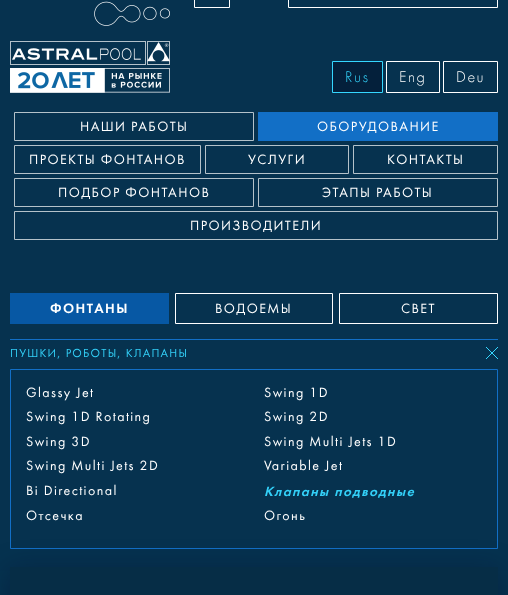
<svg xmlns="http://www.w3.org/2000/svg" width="508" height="595">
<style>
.a{font:300 16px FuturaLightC;letter-spacing:1.5px;fill:#35d7ff}
.b{font:300 16px FuturaLightC;letter-spacing:1.5px;fill:#fff}
.c{font:14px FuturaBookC;letter-spacing:1.4px;fill:#fff}
.d{font:600 14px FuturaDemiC;letter-spacing:1.4px;fill:#fff}
.e{font:12px FuturaBookC;letter-spacing:1.2px;fill:#33d0f8}
.f{font:italic 600 14px FuturaDemiC;letter-spacing:1.4px;fill:#33d0f8}
</style>
<rect width="100%" height="100%" fill="#06324f"/>
<image href="1.png" x="94" y="1" width="76" height="25"/>
<image href="2.png" x="10" y="41" width="160" height="24"/>
<image href="3.png" x="10" y="68" width="160" height="25"/>
<path fill="none" stroke="#fff" d="M194.5 -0.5h35v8H194.5z"/>
<path fill="none" stroke="#fff" d="M288.5 -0.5h209v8H288.5z"/>
<path fill="#04203b" stroke="#35d7ff" d="M332.5 61.5h50v31H332.5z"/>
<path fill="none" stroke="#fff" d="M386.5 61.5h53v31H386.5z"/>
<path fill="none" stroke="#fff" d="M443.5 61.5h54v31H443.5z"/>
<path fill="none" stroke="#b4c2ca" d="M14.5 112.5h239v28H14.5z"/>
<path fill="#126fc6" d="M258 112h240v29H258z"/>
<path fill="none" stroke="#b4c2ca" d="M14.5 145.5h186v28H14.5z"/>
<path fill="none" stroke="#b4c2ca" d="M205.5 145.5h143v28H205.5z"/>
<path fill="none" stroke="#b4c2ca" d="M353.5 145.5h144v28H353.5z"/>
<path fill="none" stroke="#b4c2ca" d="M14.5 178.5h239v28H14.5z"/>
<path fill="none" stroke="#b4c2ca" d="M258.5 178.5h239v28H258.5z"/>
<path fill="none" stroke="#b4c2ca" d="M14.5 211.5h483v28H14.5z"/>
<path fill="#0758a4" d="M10 293h159v31H10z"/>
<path fill="none" stroke="#fff" d="M175.5 293.5h157v30H175.5z"/>
<path fill="none" stroke="#fff" d="M339.5 293.5h158v30H339.5z"/>
<path fill="#126fc6" d="M10 339h488v1H10z"/>
<image href="4.png" x="486" y="347" width="12" height="12"/>
<path fill="none" stroke="#126fc6" d="M10.5 369.5h487v179H10.5z"/>
<path fill="#04052b59" filter="blur(14.5px)" d="M10 571h488v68H10z"/>
<path fill="#062d46" d="M10 567h488v28H10z"/>
<text class="a" x="345" y="82">Rus</text>
<text class="b" x="399" y="82">Eng</text>
<text class="b" x="456" y="82">Deu</text>
<text class="c" x="80" y="131">НАШИ РАБОТЫ</text>
<text class="c" x="317" y="131">ОБОРУДОВАНИЕ</text>
<text class="c" x="29" y="164">ПРОЕКТЫ ФОНТАНОВ</text>
<text class="c" x="248" y="164">УСЛУГИ</text>
<text class="c" x="387" y="164">КОНТАКТЫ</text>
<text class="c" x="58" y="197">ПОДБОР ФОНТАНОВ</text>
<text class="c" x="322" y="197">ЭТАПЫ РАБОТЫ</text>
<text class="c" x="190" y="230">ПРОИЗВОДИТЕЛИ</text>
<text class="d" x="50" y="313">ФОНТАНЫ</text>
<text class="c" x="215" y="313">ВОДОЕМЫ</text>
<text class="c" x="401" y="313">СВЕТ</text>
<text class="e" x="10" y="357">ПУШКИ, РОБОТЫ, КЛАПАНЫ</text>
<text class="c" x="26" y="397">Glassy Jet</text>
<text class="c" x="264" y="397">Swing 1D</text>
<text class="c" x="26" y="421">Swing 1D Rotating</text>
<text class="c" x="264" y="421">Swing 2D</text>
<text class="c" x="26" y="446">Swing 3D</text>
<text class="c" x="264" y="446">Swing Multi Jets 1D</text>
<text class="c" x="26" y="470">Swing Multi Jets 2D</text>
<text class="c" x="264" y="470">Variable Jet</text>
<text class="c" x="26" y="495">Bi Directional</text>
<text class="f" x="264" y="496">Клапаны подводные</text>
<text class="c" x="26" y="520">Отсечка</text>
<text class="c" x="264" y="520">Огонь</text>
</svg>
